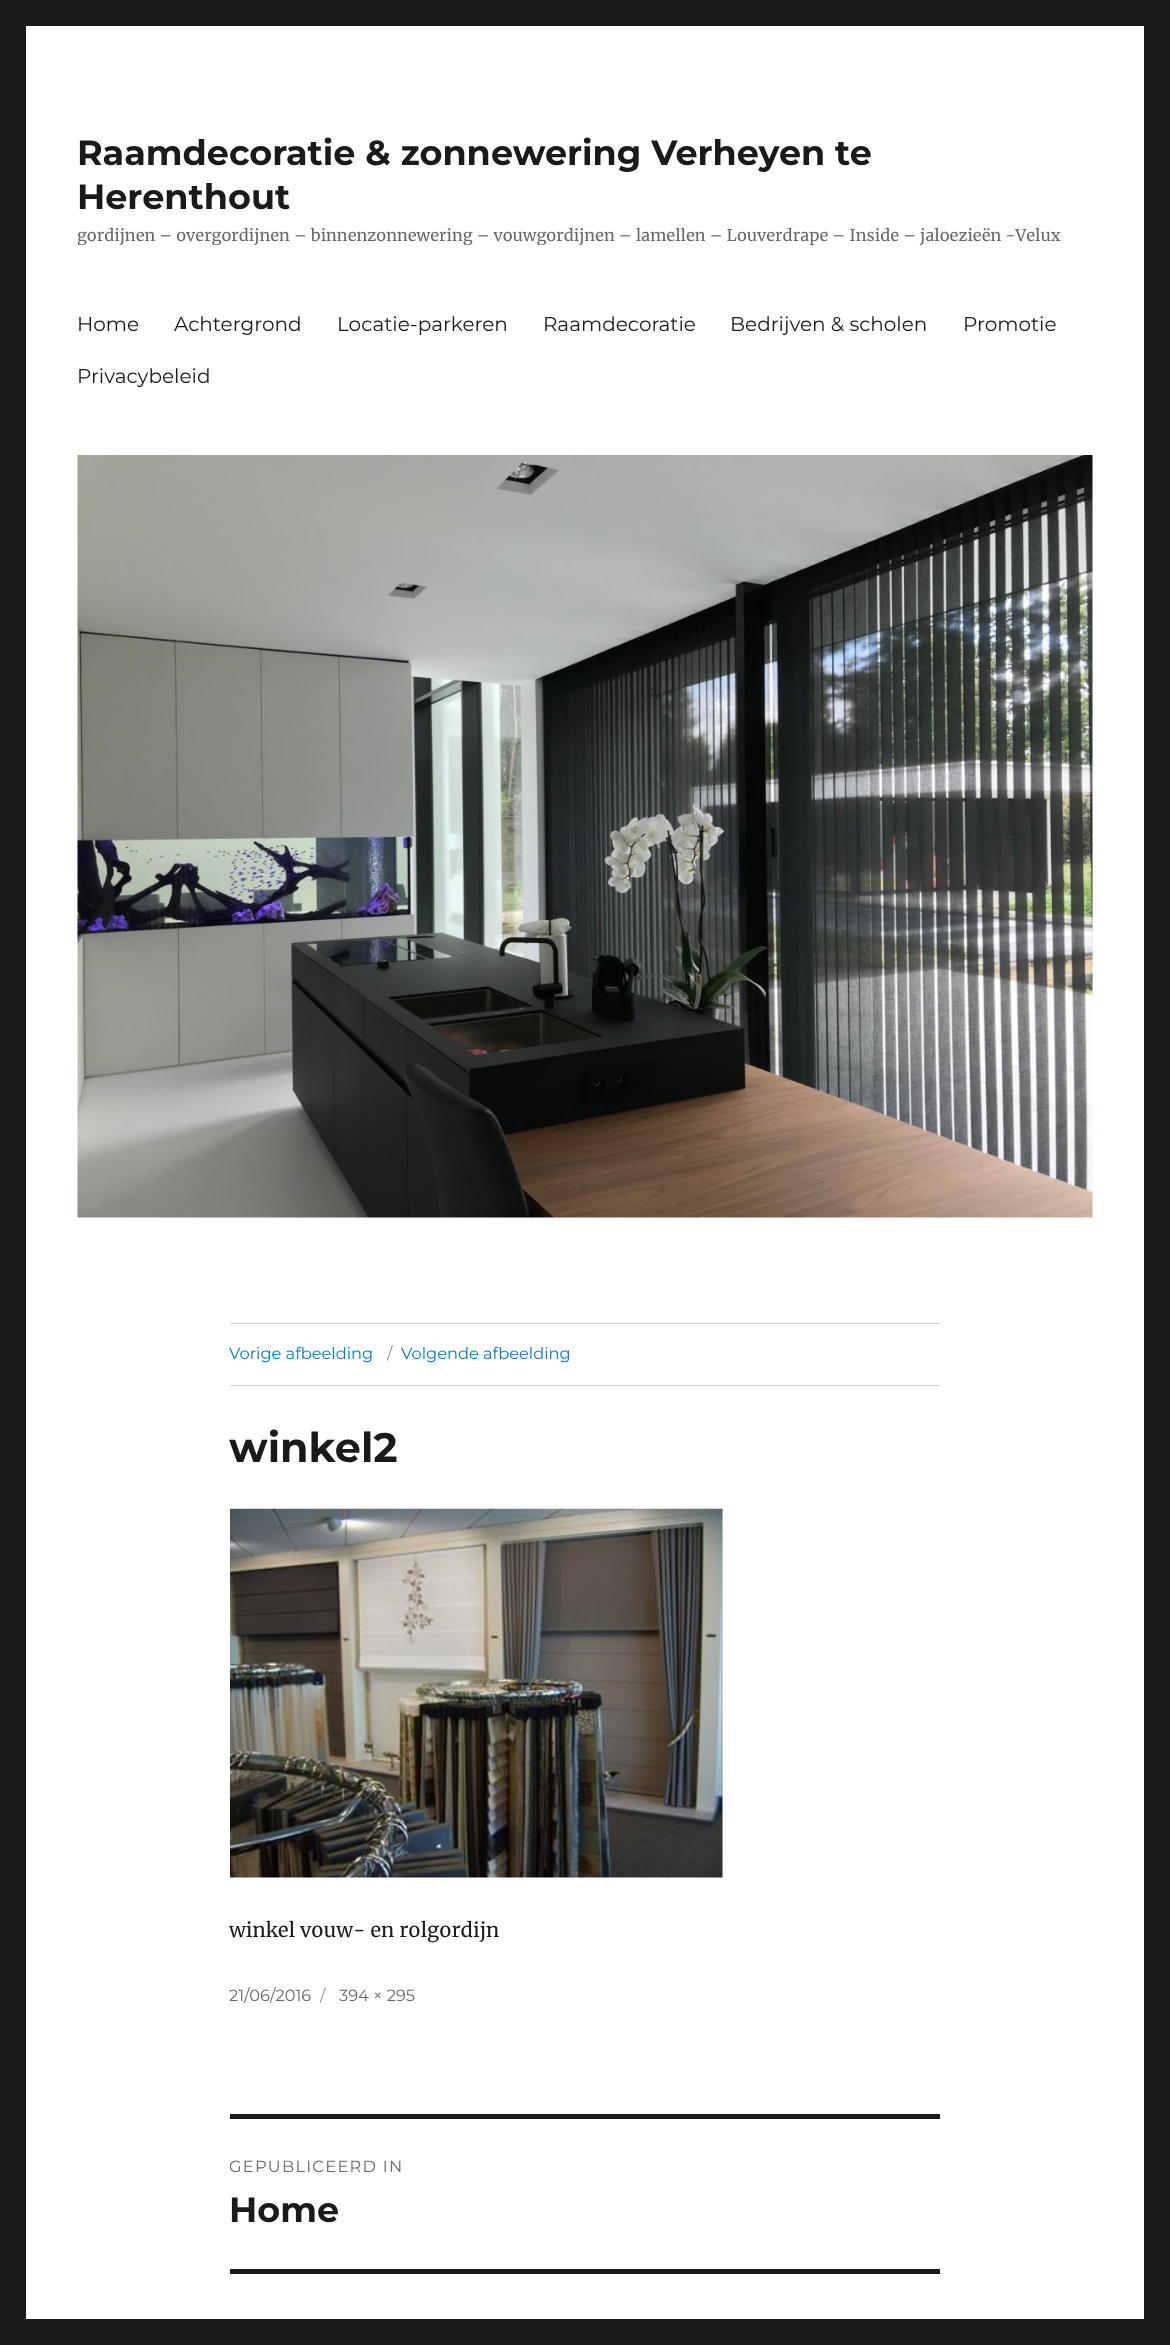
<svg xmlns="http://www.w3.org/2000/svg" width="1170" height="2345">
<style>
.a{font:100 35px 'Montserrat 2';fill:#1a1a1a}
.b{font:16.25px Merriweather;fill:#686868}
.c{font:100 20px Montserrat;fill:#1a1a1a}
.d{font:100 16.25px Montserrat;fill:#007acc}
.e{font:100 16.25px Montserrat;fill:#959595}
.f{font:100 41.25px 'Montserrat 2';fill:#1a1a1a}
.g{font:20px Merriweather;fill:#1a1a1a}
.h{font:100 16.25px Montserrat;fill:#686868}
.i{font:100 16.25px Montserrat;letter-spacing:1.25px;fill:#686868}
</style>
<defs>
<clipPath id="clip1"><path d="M78 131h1015v114H78z"/></clipPath>
</defs>
<rect width="100%" height="100%" fill="#1a1a1a"/>
<path fill="#fff" d="M26 26h1118v2293H26z"/>
<image href="1.png" x="77" y="455" width="1016" height="763"/>
<path fill="#d1d1d1" d="M230 1323h710v1H230z"/>
<path fill="#d1d1d1" d="M230 1385h710v1H230z"/>
<image href="2.png" x="230" y="1508" width="493" height="370"/>
<path fill="#1a1a1a" d="M230 2114h710v5H230z"/>
<path fill="#1a1a1a" d="M230 2269h710v5H230z"/>
<text class="a" x="77" y="165">Raamdecoratie &amp; zonnewering Verheyen te</text>
<text class="a" x="77" y="209">Herenthout</text>
<g clip-path="url(#clip1)">
<text class="b" x="77" y="241">gordijnen – overgordijnen – binnenzonnewering – vouwgordijnen – lamellen – Louverdrape – Inside – jaloezieën -Velux</text>
</g>
<text class="c" x="77" y="331">Home</text>
<text class="c" x="174" y="331">Achtergrond</text>
<text class="c" x="337" y="331">Locatie-parkeren</text>
<text class="c" x="543" y="331">Raamdecoratie</text>
<text class="c" x="730" y="331">Bedrijven &amp; scholen</text>
<text class="c" x="963" y="331">Promotie</text>
<text class="c" x="77" y="383">Privacybeleid</text>
<text class="d" x="229" y="1359">Vorige afbeelding</text>
<text class="e" x="387" y="1359">/</text>
<text class="d" x="401" y="1359">Volgende afbeelding</text>
<text class="f" x="229" y="1462">winkel2</text>
<text class="g" x="229" y="1937">winkel vouw- en rolgordijn</text>
<text class="h" x="229" y="2001">21/06/2016</text>
<text class="e" x="320" y="2001">/</text>
<text class="h" x="339" y="2001">394 × 295</text>
<text class="i" x="229" y="2172">GEPUBLICEERD IN</text>
<text class="a" x="229" y="2222">Home</text>
</svg>
